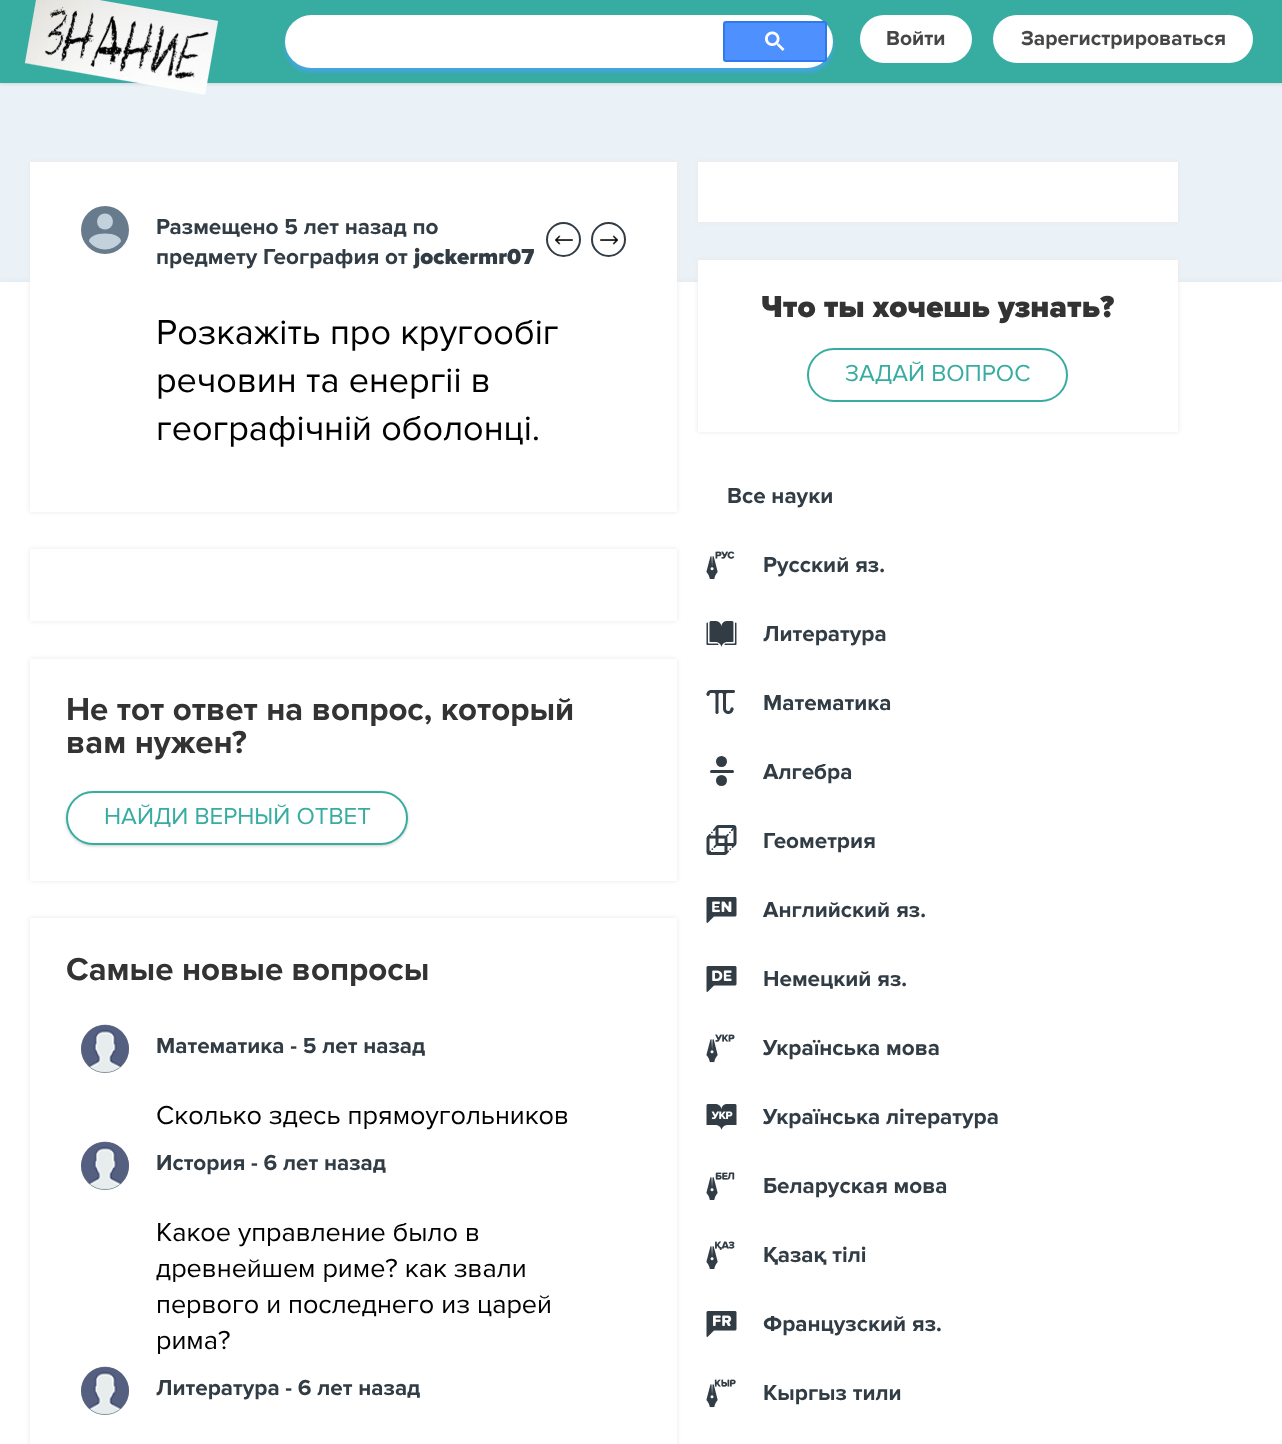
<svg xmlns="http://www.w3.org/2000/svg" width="1282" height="1444">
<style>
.a{font:bold 21px Proxima Nova;fill:#464646}
.b{font:bold 22.5px Proxima Nova;fill:#323c45}
.c{font:22.5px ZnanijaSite;fill:#323c45}
.d{font:36px 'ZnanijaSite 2';fill:#000}
.e{font:bold 33px Proxima Nova;fill:#333}
.f{font:24px 'ZnanijaSite 2';fill:#37aca1}
.g{font:27px 'ZnanijaSite 2';fill:#000}
.h{font:31.5px ZnanijaSite;fill:#333}
</style>
<rect width="100%" height="100%" fill="#ebf2f7"/>
<path fill="#bac7d0" filter="blur(2px)" d="M0 0h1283v83H0z"/>
<path fill="#37aca1" d="M0 0h1282v83H0z"/>
<image href="1.png" x="24" y="0" width="195" height="95"/>
<rect fill="#46a4e3" filter="blur(2px)" x="285" y="20" width="548" height="52" rx="26"/>
<rect fill="#fff" x="285" y="15" width="548" height="53" rx="26.5"/>
<rect fill="#4d90fe" stroke="#3079ed" stroke-width="2" x="724" y="22" width="102" height="39" rx="2"/>
<image href="2.png" x="765" y="31" width="20" height="20"/>
<rect fill="#fff" x="860" y="15" width="112" height="48" rx="24"/>
<rect fill="#fff" x="993" y="15" width="260" height="48" rx="24"/>
<path fill="#0000001a" filter="blur(4.5px)" d="M0 285h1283v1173H0z"/>
<path fill="#fff" d="M0 282h1282v1162H0z"/>
<path fill="#ece3e3" filter="blur(2px)" d="M30 162h647v350H30z"/>
<path fill="#fff" d="M30 162h647v350H30z"/>
<circle fill="#687b8c" cx="105" cy="230" r="24"/>
<circle fill="#c3d1dd" cx="105" cy="221.5" r="8"/>
<path fill="#c3d1dd" d="M105 233.5c-9 0-16 3.5-16 8c8 10.5 24 10.5 32 0c0-4.5-7-8-16-8z"/>
<image href="3.png" x="555" y="235" width="18" height="10"/>
<circle fill="none" stroke="#323c45" stroke-width="2" cx="563.5" cy="239.5" r="16.5"/>
<image href="4.png" x="600" y="235" width="18" height="10"/>
<circle fill="none" stroke="#323c45" stroke-width="2" cx="608.5" cy="239.5" r="16.5"/>
<path fill="#ece3e3" filter="blur(2px)" d="M30 549h647v72H30z"/>
<path fill="#fff" d="M30 549h647v72H30z"/>
<path fill="#ece3e3" filter="blur(2px)" d="M30 659h647v222H30z"/>
<path fill="#fff" d="M30 659h647v222H30z"/>
<rect fill="#00000033" filter="blur(1.5px)" x="66" y="792" width="342" height="54" rx="27"/>
<rect fill="#fff" stroke="#37aca1" stroke-width="2" x="67" y="792" width="340" height="52" rx="26"/>
<path fill="#ece3e3" filter="blur(2px)" d="M30 918h647v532H30z"/>
<path fill="#fff" d="M30 918h647v526H30z"/>
<circle fill="#687b8c" cx="105" cy="1049" r="24"/>
<image href="5.png" x="81" y="1024" width="48" height="49"/>
<circle fill="#687b8c" cx="105" cy="1166" r="24"/>
<image href="6.png" x="81" y="1141" width="48" height="49"/>
<circle fill="#687b8c" cx="105" cy="1391" r="24"/>
<image href="7.png" x="81" y="1366" width="48" height="49"/>
<path fill="#ece3e3" filter="blur(2px)" d="M698 162h480v60H698z"/>
<path fill="#fff" d="M698 162h480v60H698z"/>
<path fill="#ece3e3" filter="blur(2px)" d="M698 260h480v172H698z"/>
<path fill="#fff" d="M698 260h480v172H698z"/>
<rect fill="none" stroke="#37aca1" stroke-width="2" x="808" y="349" width="259" height="52" rx="26"/>
<image href="8.png" x="706" y="551" width="29" height="28"/>
<image href="9.png" x="706" y="621" width="31" height="26"/>
<image href="10.png" x="706" y="690" width="29" height="24"/>
<rect fill="#323c45" x="710" y="770" width="24" height="3" rx="1.5"/>
<circle fill="#323c45" cx="721.5" cy="780.5" r="5.5"/>
<circle fill="#323c45" cx="721.5" cy="761.5" r="5.5"/>
<image href="11.png" x="706" y="825" width="31" height="30"/>
<image href="12.png" x="706" y="897" width="31" height="26"/>
<image href="13.png" x="706" y="966" width="31" height="26"/>
<image href="14.png" x="706" y="1034" width="29" height="29"/>
<image href="15.png" x="706" y="1104" width="31" height="26"/>
<image href="16.png" x="706" y="1172" width="29" height="28"/>
<image href="17.png" x="706" y="1241" width="29" height="28"/>
<image href="18.png" x="706" y="1311" width="31" height="26"/>
<image href="19.png" x="706" y="1379" width="30" height="29"/>
<text class="a" x="886" y="45">Войти</text>
<text class="a" x="1021" y="45">Зарегистрироваться</text>
<text class="b" x="156" y="234">Размещено 5 лет назад по</text>
<text class="c" x="414" y="264">jockermr07</text>
<text class="b" x="156" y="264">предмету География от</text>
<text class="d" x="156" y="344">Розкажiть про кругообiг</text>
<text class="d" x="156" y="392">речовин та енергii в</text>
<text class="d" x="156" y="440">географiчнiй оболонцi.</text>
<text class="e" x="66" y="720">Не тот ответ на вопрос, который</text>
<text class="e" x="66" y="753">вам нужен?</text>
<text class="f" x="104" y="824">НАЙДИ ВЕРНЫЙ ОТВЕТ</text>
<text class="e" x="66" y="980">Самые новые вопросы</text>
<text class="b" x="156" y="1053">Математика - 5 лет назад</text>
<text class="g" x="156" y="1124">Сколько здесь прямоугольников</text>
<text class="b" x="156" y="1170">История - 6 лет назад</text>
<text class="g" x="156" y="1241">Какое управление было в</text>
<text class="g" x="156" y="1277">древнейшем риме? как звали</text>
<text class="g" x="156" y="1313">первого и последнего из царей</text>
<text class="g" x="156" y="1349">рима?</text>
<text class="b" x="156" y="1395">Литература - 6 лет назад</text>
<text class="h" x="761" y="317">Что ты хочешь узнать?</text>
<text class="f" x="845" y="381">ЗАДАЙ ВОПРОС</text>
<text class="b" x="727" y="503">Все науки</text>
<text class="b" x="763" y="572">Русский яз.</text>
<text class="b" x="763" y="641">Литература</text>
<text class="b" x="763" y="710">Математика</text>
<text class="b" x="763" y="779">Алгебра</text>
<text class="b" x="763" y="848">Геометрия</text>
<text class="b" x="763" y="917">Английский яз.</text>
<text class="b" x="763" y="986">Немецкий яз.</text>
<text class="b" x="763" y="1055">Українська мова</text>
<text class="b" x="763" y="1124">Українська література</text>
<text class="b" x="763" y="1193">Беларуская мова</text>
<text class="b" x="763" y="1262">Қазақ тiлi</text>
<text class="b" x="763" y="1331">Французский яз.</text>
<text class="b" x="763" y="1400">Кыргыз тили</text>
</svg>
